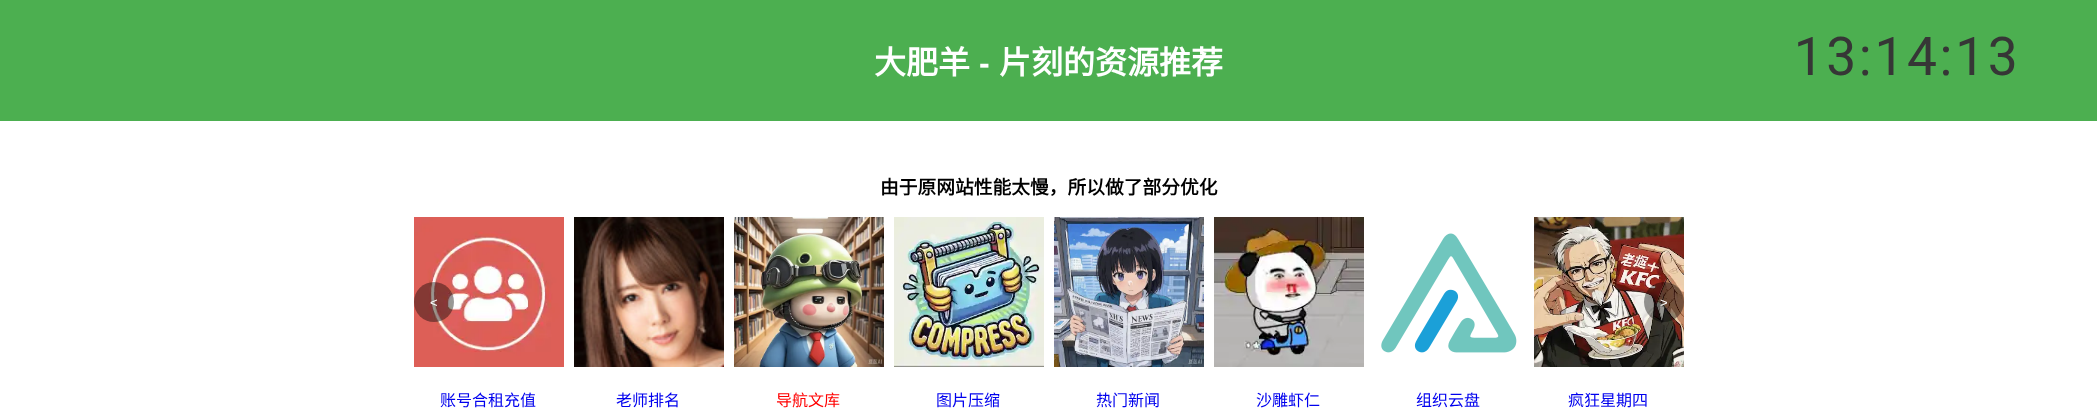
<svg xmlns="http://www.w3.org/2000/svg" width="2097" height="415">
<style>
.a{font:bold 32px Noto Sans CJK SC;fill:#fff}
.b{font:bold 32px Liberation Sans;fill:#fff}
.c{font:bold 18.75px Noto Sans CJK SC;fill:#000}
.d{font:13px Liberation Sans;fill:#fff}
.e{font:16px Noto Sans CJK SC;fill:#00e}
.f{font:16px Noto Sans CJK SC;fill:#f00}
</style>
<rect width="100%" height="100%" fill="#fff"/>
<path fill="#4caf50" d="M0 0h2097v121H0z"/>
<image href="1.png" x="1798" y="36" width="217" height="40"/>
<image href="2.png" x="414" y="217" width="150" height="150"/>
<circle fill="#00000066" cx="434" cy="302" r="20"/>
<image href="9.png" x="1534" y="217" width="150" height="150"/>
<circle fill="#00000066" cx="1664" cy="302" r="20"/>
<image href="3.png" x="574" y="217" width="150" height="150"/>
<image href="4.png" x="734" y="217" width="150" height="150"/>
<image href="5.png" x="894" y="217" width="150" height="150"/>
<image href="6.png" x="1054" y="217" width="150" height="150"/>
<image href="7.png" x="1214" y="217" width="150" height="150"/>
<image href="8.png" x="1381" y="233" width="136" height="120"/>
<text class="a" x="874" y="74">大肥羊</text>
<text class="b" x="979" y="74">-</text>
<text class="a" x="999" y="74">片刻的资源推荐</text>
<text class="c" x="880" y="194">由于原网站性能太慢，所以做了部分优化</text>
<text class="d" x="430" y="307">&lt;</text>
<text class="d" x="1660" y="307">&gt;</text>
<text class="e" x="440" y="406">账号合租充值</text>
<text class="e" x="616" y="406">老师排名</text>
<text class="f" x="776" y="406">导航文库</text>
<text class="e" x="936" y="406">图片压缩</text>
<text class="e" x="1096" y="406">热门新闻</text>
<text class="e" x="1256" y="406">沙雕虾仁</text>
<text class="e" x="1416" y="406">组织云盘</text>
<text class="e" x="1568" y="406">疯狂星期四</text>
</svg>
